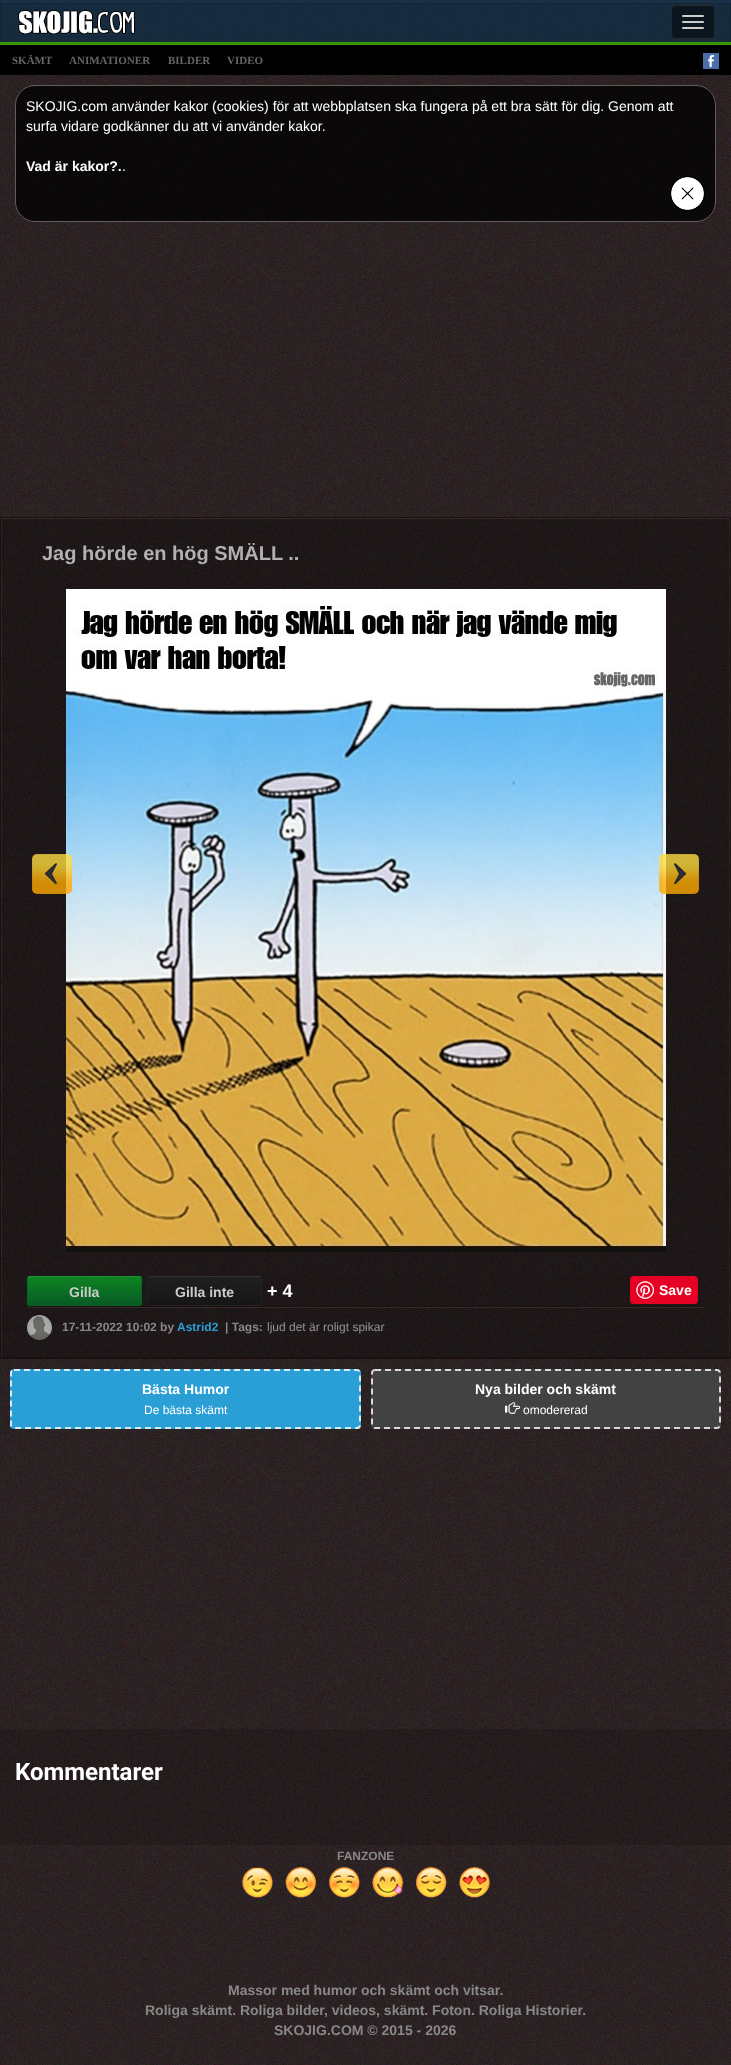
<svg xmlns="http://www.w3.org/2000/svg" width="731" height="2065">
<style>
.a{font:bold 11px Liberation Serif;fill:#656565}
.b{font:14px Liberation Sans;fill:#fff}
.c{font:bold 14px Liberation Sans;fill:#fff}
.d{font:bold 20px Liberation Sans;fill:#b1b1b1}
.e{font:bold 14px Liberation Sans;fill:#ccc}
.f{font:bold 18px Liberation Sans;fill:#fff}
.g{font:bold 12px Liberation Sans;fill:#888}
.h{font:bold 12px Liberation Sans;fill:#2a9fd6}
.i{font:12px Liberation Sans;fill:#959595}
.j{font:12px Liberation Sans;fill:#fff}
.k{font:bold 24px Roboto;fill:#fff}
.l{font:bold 14px Liberation Sans;fill:#888}
</style>
<defs>
<clipPath id="clip1"><rect x="27" y="1276" width="115" height="30" rx="2"/></clipPath>
<linearGradient id="g1" gradientUnits="userSpaceOnUse" x1="85" y1="1249" x2="85" y2="1277"><stop offset="0" stop-color="#0e8422"/><stop offset="1" stop-color="#095b24"/></linearGradient>
<linearGradient id="g2" gradientUnits="userSpaceOnUse" x1="85" y1="1277" x2="85" y2="1305"><stop offset="0" stop-color="#0e8422"/><stop offset="1" stop-color="#095b24"/></linearGradient>
<clipPath id="clip2"><rect x="147" y="1276" width="115" height="30" rx="2"/></clipPath>
<linearGradient id="g3" gradientUnits="userSpaceOnUse" x1="205" y1="1249" x2="205" y2="1277"><stop offset="0" stop-color="#1f1f1f"/><stop offset="1" stop-color="#161616"/></linearGradient>
<linearGradient id="g4" gradientUnits="userSpaceOnUse" x1="205" y1="1277" x2="205" y2="1305"><stop offset="0" stop-color="#1f1f1f"/><stop offset="1" stop-color="#161616"/></linearGradient>
</defs>
<rect width="100%" height="100%" fill="#fff"/>
<image href="1.png" x="0" y="75" width="731" height="1990"/>
<image href="2.png" x="0" y="0" width="731" height="42"/>
<path fill="#369801" d="M0 42h731v3H0z"/>
<path fill="#0000001a" d="M0 3h731v39H0z"/>
<path fill="#00000026" d="M0 3h731l-1 1h-729z"/>
<path fill="#00000026" d="M731 3v39h-1v-38z"/>
<path fill="#00000026" d="M0 42v-39l1 1v38z"/>
<image href="3.png" x="18" y="10" width="117" height="25"/>
<rect fill="#00000080" stroke="#282828" x="671.5" y="5.5" width="43" height="33" rx="3.5"/>
<rect fill="#ccc" x="682" y="15" width="22" height="2" rx="1"/>
<rect fill="#ccc" x="682" y="21" width="22" height="2" rx="1"/>
<rect fill="#ccc" x="682" y="27" width="22" height="2" rx="1"/>
<path fill="#000" d="M0 45h731v30H0z"/>
<image href="4.png" x="703" y="53" width="16" height="16"/>
<rect fill="#000000bf" x="15" y="85" width="701" height="137" rx="20"/>
<rect fill="none" stroke="#ffffff59" x="15.5" y="85.5" width="700" height="136" rx="19.5"/>
<image href="5.png" x="670" y="176" width="35" height="35"/>
<path fill="none" stroke="#1b1010" d="M0.5 517.5h730v841H0.5z"/>
<path fill="#0000004d" d="M2 519h727v838H2z"/>
<path fill="#352929" d="M2 518h727v1H2z"/>
<path fill="#1b1010" d="M2 1357h727v1H2z"/>
<image href="8.png" x="66" y="589" width="600" height="663"/>
<image href="6.png" x="32" y="854" width="40" height="40"/>
<image href="7.png" x="659" y="854" width="40" height="40"/>
<g clip-path="url(#clip1)">
<path fill="url(#g1)" d="M27 1276h115v1H27z"/>
<path fill="url(#g2)" d="M27 1277h115v28H27z"/>
</g>
<path fill="none" stroke="#249340" d="M28 1277l1-.5h74c2.5 0 37-.5 38 .5"/>
<g clip-path="url(#clip2)">
<path fill="url(#g3)" d="M147 1276h115v1H147z"/>
<path fill="url(#g4)" d="M147 1277h115v28H147z"/>
</g>
<path fill="none" stroke="#343434" d="M148 1277c1-1 35.5-.5 38-.5h74l1 .5"/>
<image href="9.png" x="66" y="1252" width="600" height="24"/>
<path fill="#1b1010" d="M27 1306h677v1H27z"/>
<path fill="none" stroke="#066526" d="M141 1277c1.5 1.5 .5 7.5 .5 9.5v13c0 .5 1 6-1.5 6h-111c-2.5 0-1.5-5.5-1.5-6v-13c0-2-1-8 .5-9.5"/>
<path fill="none" stroke="#222" d="M261 1277c1.5 1.5 .5 7.5 .5 9.5v13c0 .5 1 6-1.5 6h-111c-2.5 0-1.5-5.5-1.5-6v-13c0-2-1-8 .5-9.5"/>
<rect fill="#e60023" x="630" y="1276" width="68" height="28" rx="4"/>
<image href="10.png" x="636" y="1281" width="18" height="18"/>
<path fill="#352929" d="M27 1307h677v1H27z"/>
<image href="11.png" x="27" y="1315" width="25" height="25"/>
<rect fill="#2a9fd6" x="10" y="1369" width="351" height="60" rx="4"/>
<path fill="none" stroke="#ffffffcc" stroke-width="2" stroke-dasharray="6 4" d="M14 1370h343c1.5 0 3 1.5 3 3v52c0 1.5-1.5 3-3 3h-343c-1.5 0-3-1.5-3-3v-52c0-1.5 1.5-3 3-3z"/>
<rect fill="#424242" x="371" y="1369" width="350" height="60" rx="4"/>
<path fill="none" stroke="#ffffffcc" stroke-width="2" stroke-dasharray="6 4" d="M375 1370h342c1.5 0 3 1.5 3 3v52c0 1.5-1.5 3-3 3h-342c-1.5 0-3-1.5-3-3v-52c0-1.5 1.5-3 3-3z"/>
<image href="12.png" x="505" y="1402" width="16" height="12"/>
<path fill="#00000026" d="M0 1729h731v116H0z"/>
<image href="13.png" x="242" y="1867" width="248" height="31"/>
<text class="a" x="12" y="64">SKÄMT</text>
<text class="a" x="69" y="64">ANIMATIONER</text>
<text class="a" x="168" y="64">BILDER</text>
<text class="a" x="227" y="64">VIDEO</text>
<text class="b" x="26" y="111">SKOJIG.com använder kakor (cookies) för att webbplatsen ska fungera på ett bra sätt för dig. Genom att</text>
<text class="b" x="26" y="131">surfa vidare godkänner du att vi använder kakor.</text>
<text class="c" x="26" y="171">Vad är kakor?.</text>
<text class="b" x="122" y="171">.</text>
<text class="d" x="42" y="560">Jag hörde en hög SMÄLL ..</text>
<text class="e" x="69" y="1297">Gilla</text>
<text class="e" x="175" y="1297">Gilla inte</text>
<text class="f" x="267" y="1297">+ 4</text>
<text class="c" x="659" y="1295">Save</text>
<text class="g" x="62" y="1331">17-11-2022 10:02 by</text>
<text class="h" x="177" y="1331">Astrid2</text>
<text class="g" x="225" y="1331">| Tags:</text>
<text class="i" x="267" y="1331">ljud det är roligt spikar</text>
<text class="c" x="142" y="1394">Bästa Humor</text>
<text class="j" x="144" y="1414">De bästa skämt</text>
<text class="c" x="475" y="1394">Nya bilder och skämt</text>
<text class="j" x="523" y="1414">omodererad</text>
<text class="k" x="15" y="1780">Kommentarer</text>
<text class="g" x="337" y="1860">FANZONE</text>
<text class="l" x="228" y="1995">Massor med humor och skämt och vitsar.</text>
<text class="l" x="145" y="2015">Roliga skämt. Roliga bilder, videos, skämt. Foton. Roliga Historier.</text>
<text class="l" x="274" y="2035">SKOJIG.COM © 2015 - 2026</text>
</svg>
